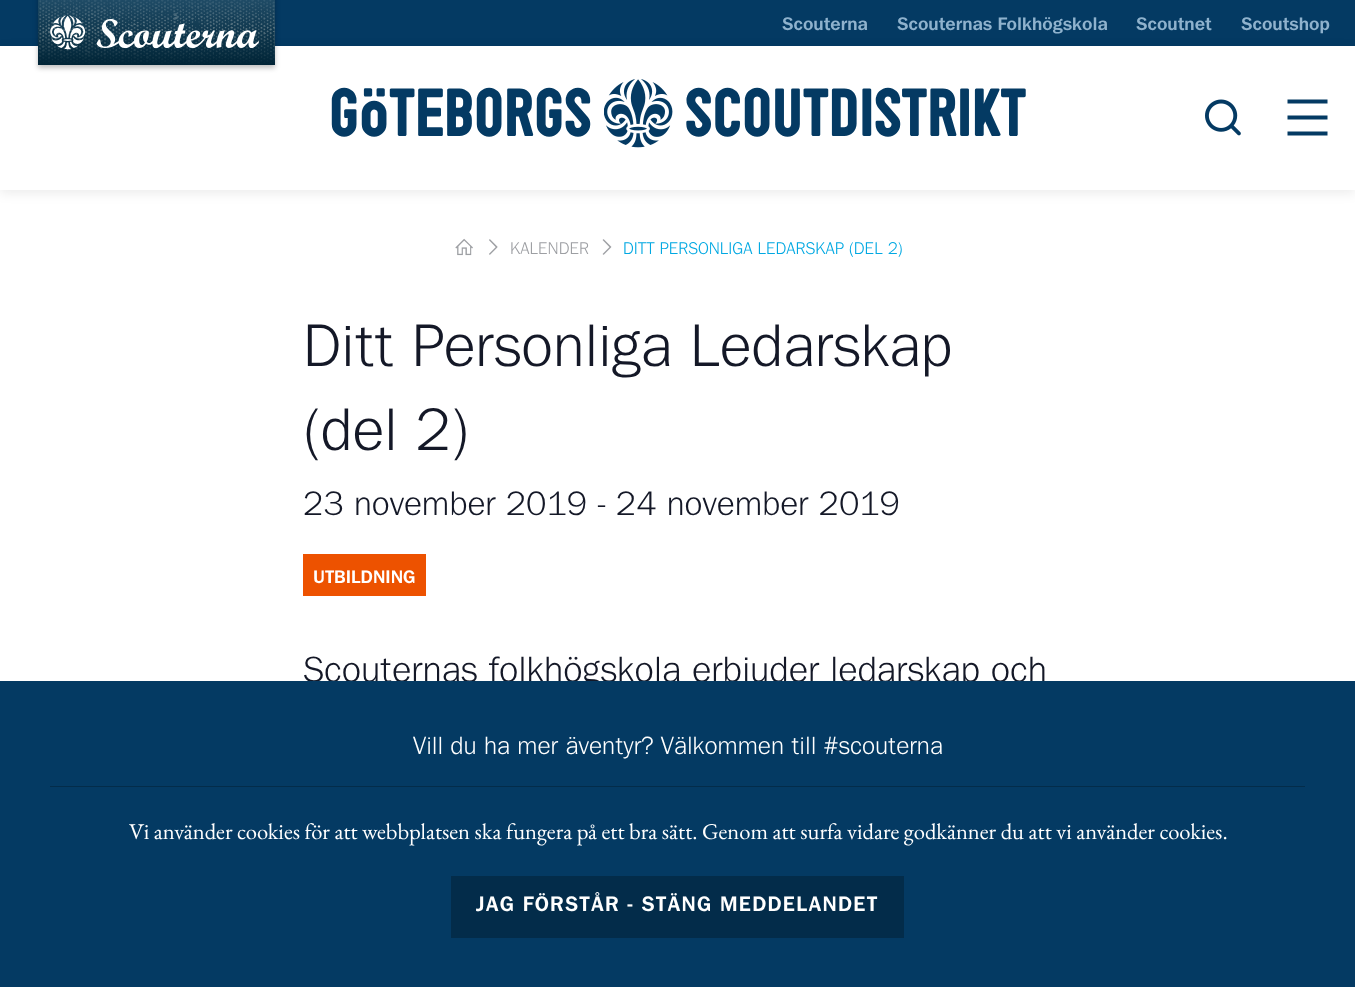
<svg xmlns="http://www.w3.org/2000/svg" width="1355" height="987">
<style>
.a{font:18.6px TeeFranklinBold;fill:#8fb2cd}
.b{font:bold 66.5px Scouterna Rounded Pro;fill:#043a63}
.c{font:17.25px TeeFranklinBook;fill:#9d9fa3}
.d{font:17.25px TeeFranklinBook;fill:#01a8e2}
.e{font:61px TeeFranklinBook;fill:#141827}
.f{font:34.5px TeeFranklinBook;fill:#141827}
.g{font:18.6px TeeFranklinBold;fill:#fff}
.h{font:37.2px TeeFranklinBook;fill:#141827}
.i{font:25.25px TeeFranklinBook;fill:#fff}
.j{font:22.6px EB Garamond;fill:#fff}
.k{font:21.25px TeeFranklinBold;letter-spacing:1.25px;fill:#fff}
</style>
<rect width="100%" height="100%" fill="#fff"/>
<path fill="#043a63" d="M0 0h1355v46H0z"/>
<path fill="#00000014" filter="blur(6px)" d="M0 49h1355v144H0z"/>
<path fill="#fff" d="M0 46h1355v144H0z"/>
<path fill="#00000040" filter="blur(2.5px)" d="M38 -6h237v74H38z"/>
<image href="1.png" x="38" y="0" width="237" height="65"/>
<image href="2.png" x="604" y="79" width="69" height="69"/>
<image href="3.png" x="1205" y="99" width="36" height="37"/>
<path fill="#043a63" d="M1287.5 99.5h40v4h-40zm0 16h40v4h-40zm0 16h40v4h-40z"/>
<image href="4.png" x="455" y="238" width="18" height="18"/>
<image href="5.png" x="489" y="239" width="9" height="16"/>
<image href="6.png" x="602" y="239" width="10" height="16"/>
<path fill="#ed5200" d="M303 554h123v42H303z"/>
<text class="a" x="782" y="30">Scouterna</text>
<text class="a" x="897" y="30">Scouternas Folkhögskola</text>
<text class="a" x="1136" y="30">Scoutnet</text>
<text class="a" x="1241" y="30">Scoutshop</text>
<text class="b" x="329" y="136">GÖTEBORGS</text>
<text class="b" x="685" y="136">SCOUTDISTRIKT</text>
<text class="c" x="510" y="254">KALENDER</text>
<text class="d" x="623" y="254">DITT PERSONLIGA LEDARSKAP (DEL 2)</text>
<text class="e" x="303" y="366">Ditt Personliga Ledarskap</text>
<text class="e" x="303" y="450">(del 2)</text>
<text class="f" x="303" y="515">23 november 2019 - 24 november 2019</text>
<text class="g" x="313" y="583">UTBILDNING</text>
<text class="h" x="303" y="682">Scouternas folkhögskola erbjuder ledarskap och</text>
<path fill="#043a63" d="M0 681h1355v306H0z"/>
<text class="i" x="413" y="754">Vill du ha mer äventyr? Välkommen till #scouterna</text>
<path fill="#032c4a" d="M50 786h1255v1H50z"/>
<text class="j" x="129" y="839">Vi använder cookies för att webbplatsen ska fungera på ett bra sätt. Genom att surfa vidare godkänner du att vi använder cookies.</text>
<path fill="#032c4a" d="M451 876h453v62H451z"/>
<text class="k" x="476" y="911">JAG FÖRSTÅR - STÄNG MEDDELANDET</text>
</svg>
